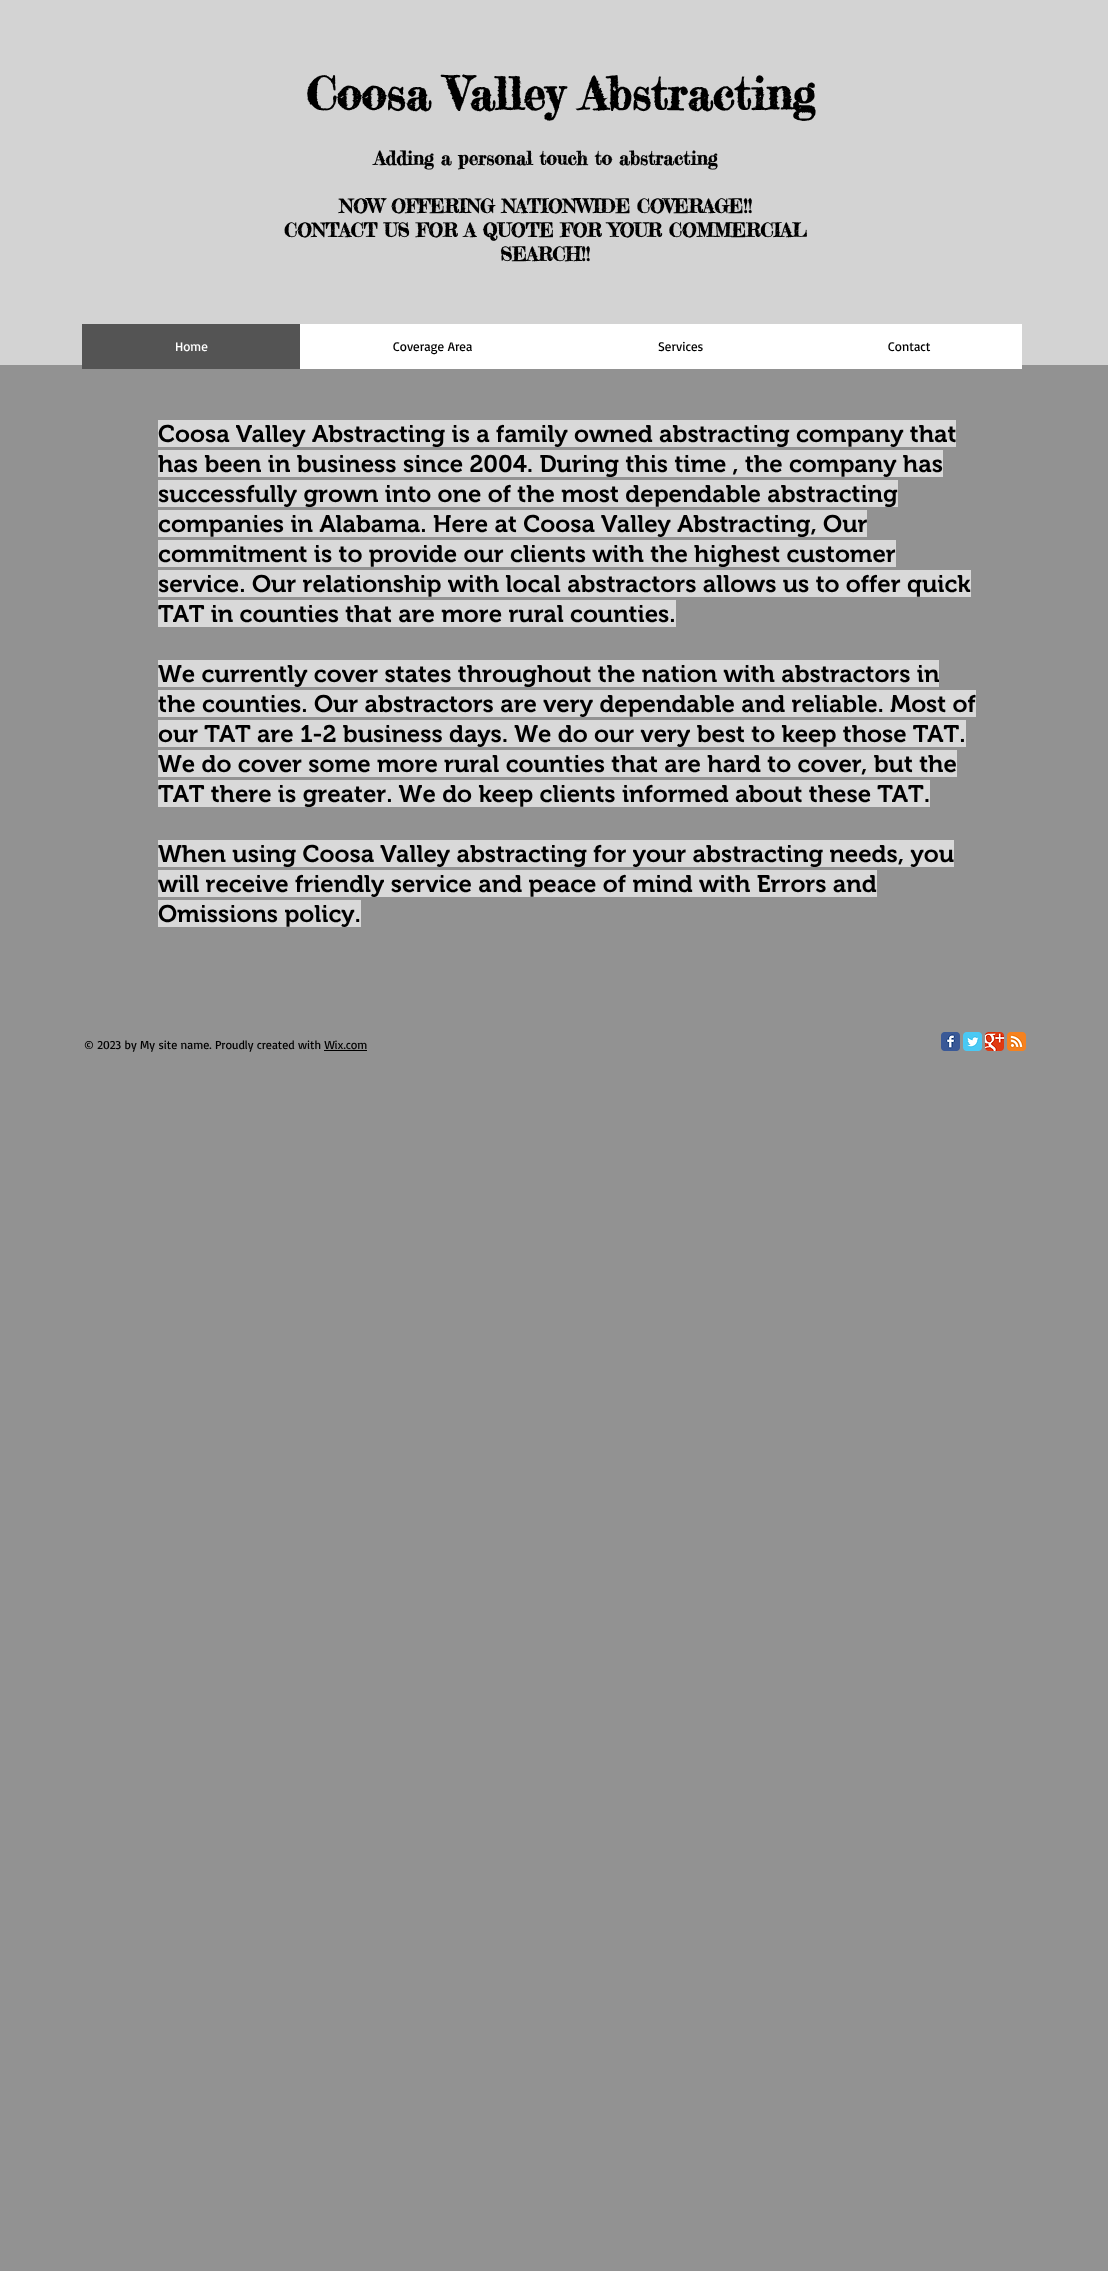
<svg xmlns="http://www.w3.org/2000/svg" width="1108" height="2271">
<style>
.a{font:bold 45px Fredericka the Great;fill:#000}
.b{font:bold 19px Fredericka the Great;fill:#000}
.c{font:13px Basic;fill:#fff}
.d{font:13px Basic;fill:#000}
.e{font:600 24px 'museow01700';fill:#000}
.f{font:12px Basic;fill:#000}
</style>
<rect width="100%" height="100%" fill="#929292"/>
<path fill="#d3d3d3" d="M0 0h1108v365H0z"/>
<path fill="#fff" d="M300 324h722v45H300z"/>
<path fill="#545454" d="M82 324h218v45H82z"/>
<path fill="#d9d9d9" d="M158 420h798v27H158z"/>
<path fill="#d9d9d9" d="M158 450h785v27H158z"/>
<path fill="#d9d9d9" d="M158 480h740v27H158z"/>
<path fill="#d9d9d9" d="M158 510h709v27H158z"/>
<path fill="#d9d9d9" d="M158 540h738v27H158z"/>
<path fill="#d9d9d9" d="M158 570h813v27H158z"/>
<path fill="#d9d9d9" d="M158 600h518v27H158z"/>
<path fill="#d9d9d9" d="M158 660h781v27H158z"/>
<path fill="#d9d9d9" d="M158 690h818v27H158z"/>
<path fill="#d9d9d9" d="M158 720h808v27H158z"/>
<path fill="#d9d9d9" d="M158 750h799v27H158z"/>
<path fill="#d9d9d9" d="M158 780h772v27H158z"/>
<path fill="#d9d9d9" d="M158 840h796v27H158z"/>
<path fill="#d9d9d9" d="M158 870h719v27H158z"/>
<path fill="#d9d9d9" d="M158 900h203v27H158z"/>
<path fill="#000" d="M324 1050h43v1H324z"/>
<image href="1.png" x="941" y="1032" width="19" height="19"/>
<image href="2.png" x="963" y="1032" width="19" height="19"/>
<image href="3.png" x="985" y="1032" width="19" height="19"/>
<image href="4.png" x="1007" y="1032" width="19" height="19"/>
<text class="a" x="306" y="110">Coosa Valley Abstracting</text>
<text class="b" x="374" y="165">Adding a personal touch to abstracting</text>
<text class="b" x="339" y="213">NOW OFFERING NATIONWIDE COVERAGE!!</text>
<text class="b" x="284" y="237">CONTACT US FOR A QUOTE FOR YOUR COMMERCIAL</text>
<text class="b" x="500" y="261">SEARCH!!</text>
<text class="c" x="175" y="351">Home</text>
<text class="d" x="393" y="351">Coverage Area</text>
<text class="d" x="658" y="351">Services</text>
<text class="d" x="888" y="351">Contact</text>
<text class="e" x="158" y="442">Coosa Valley Abstracting is a family owned abstracting company that</text>
<text class="e" x="158" y="472">has been in business since 2004. During this time , the company has</text>
<text class="e" x="158" y="502">successfully grown into one of the most dependable abstracting</text>
<text class="e" x="158" y="532">companies in Alabama. Here at Coosa Valley Abstracting, Our</text>
<text class="e" x="158" y="562">commitment is to provide our clients with the highest customer</text>
<text class="e" x="158" y="592">service. Our relationship with local abstractors allows us to offer quick</text>
<text class="e" x="158" y="622">TAT in counties that are more rural counties.</text>
<text class="e" x="158" y="682">We currently cover states throughout the nation with abstractors in</text>
<text class="e" x="158" y="712">the counties. Our abstractors are very dependable and reliable. Most of</text>
<text class="e" x="158" y="742">our TAT are 1-2 business days. We do our very best to keep those TAT.</text>
<text class="e" x="158" y="772">We do cover some more rural counties that are hard to cover, but the</text>
<text class="e" x="158" y="802">TAT there is greater. We do keep clients informed about these TAT.</text>
<text class="e" x="158" y="862">When using Coosa Valley abstracting for your abstracting needs, you</text>
<text class="e" x="158" y="892">will receive friendly service and peace of mind with Errors and</text>
<text class="e" x="158" y="922">Omissions policy.</text>
<text class="f" x="84" y="1049">© 2023 by My site name. Proudly created with Wix.com</text>
</svg>
